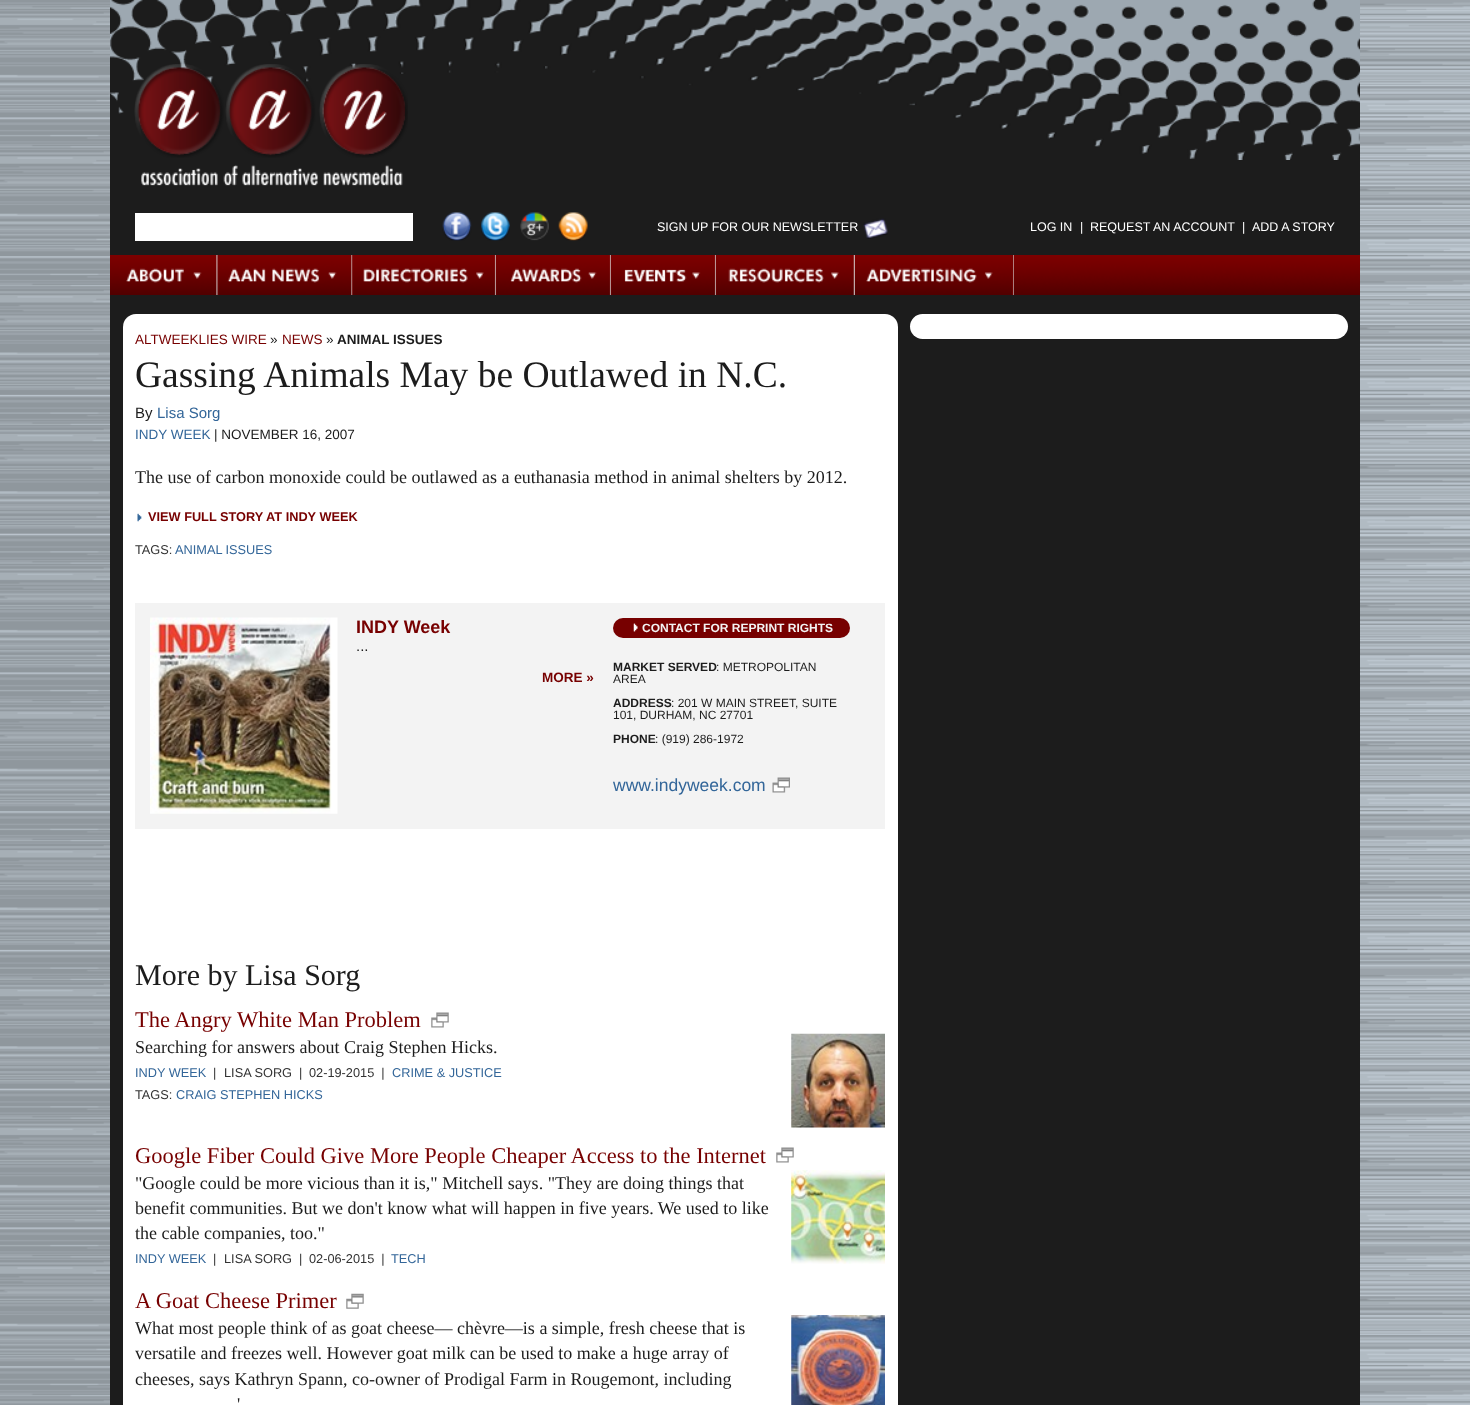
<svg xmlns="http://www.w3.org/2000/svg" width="1470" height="1405">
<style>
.a{font:12.5px Liberation Sans;fill:#fff}
.b{font:13.5px Liberation Sans;fill:#700}
.c{font:13.5px Liberation Sans;fill:#1c1c1c}
.d{font:bold 13.5px Liberation Sans;fill:#1c1c1c}
.e{font:37.5px Liberation Serif;fill:#1c1c1c}
.f{font:15px Liberation Sans;fill:#1c1c1c}
.g{font:15px Liberation Sans;fill:#369}
.h{font:13.5px Liberation Sans;fill:#369}
.i{font:18px Liberation Serif;fill:#1c1c1c}
.j{font:bold 12.75px Liberation Sans;fill:#700}
.k{font:12.75px Liberation Sans;fill:#333}
.l{font:12.75px Liberation Sans;fill:#369}
.m{font:bold 18px Liberation Sans;fill:#700}
.n{font:bold 13.5px Liberation Sans;fill:#700}
.o{font:bold 12px Liberation Sans;fill:#f3f3f3}
.p{font:bold 12px Liberation Sans;fill:#1c1c1c}
.q{font:12px Liberation Sans;fill:#1c1c1c}
.r{font:17.5px Liberation Sans;fill:#369}
.s{font:30px Liberation Serif;fill:#1c1c1c}
.t{font:22.5px Liberation Serif;fill:#700}
</style>
<rect width="100%" height="100%" fill="#fff"/>
<image href="1.png" x="0" y="0" width="1470" height="1405"/>
<path fill="#1c1c1c" d="M110 160h1250v1245H110z"/>
<image href="2.png" x="110" y="0" width="1250" height="160"/>
<image href="3.png" x="134" y="64" width="274" height="122"/>
<path fill="#fff" d="M135 213h278v28H135z"/>
<image href="4.png" x="442" y="212" width="30" height="29"/>
<image href="5.png" x="481" y="212" width="29" height="29"/>
<image href="6.png" x="520" y="212" width="29" height="29"/>
<image href="7.png" x="558" y="212" width="30" height="29"/>
<image href="8.png" x="863" y="218" width="25" height="21"/>
<image href="9.png" x="1013" y="255" width="347" height="40"/>
<path fill="#700" d="M218 255h1v40H218z"/>
<image href="10.png" x="110" y="255" width="109" height="40"/>
<path fill="#700" d="M352 255h1v40H352z"/>
<image href="11.png" x="219" y="255" width="134" height="40"/>
<image href="12.png" x="352" y="255" width="144" height="40"/>
<path fill="#700" d="M496 255h1v40H496z"/>
<image href="13.png" x="496" y="255" width="115" height="40"/>
<path fill="#700" d="M611 255h1v40H611z"/>
<image href="14.png" x="611" y="255" width="105" height="40"/>
<path fill="#700" d="M716 255h1v40H716z"/>
<image href="15.png" x="716" y="255" width="139" height="40"/>
<path fill="#700" d="M1012 255h1v40H1012z"/>
<image href="16.png" x="855" y="255" width="158" height="40"/>
<rect fill="#fff" x="910" y="314" width="438" height="25" rx="12.5"/>
<rect fill="#fff" x="123" y="314" width="775" height="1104" rx="13"/>
<image href="17.png" x="137" y="513" width="5" height="9"/>
<path fill="#f3f3f3" d="M135 603h750v226H135z"/>
<image href="18.png" x="150" y="617" width="188" height="197"/>
<rect fill="#700" x="613" y="618" width="237" height="20" rx="10"/>
<image href="19.png" x="633" y="623" width="5" height="9"/>
<image href="20.png" x="772" y="777" width="18" height="16"/>
<image href="21.png" x="431" y="1012" width="18" height="16"/>
<image href="22.png" x="791" y="1033" width="94" height="95"/>
<image href="21.png" x="776" y="1147" width="18" height="16"/>
<image href="23.png" x="791" y="1170" width="94" height="94"/>
<image href="24.png" x="346" y="1293" width="18" height="16"/>
<image href="25.png" x="791" y="1315" width="94" height="90"/>
<text class="a" x="657" y="231">SIGN UP FOR OUR NEWSLETTER</text>
<text class="a" x="1030" y="231">LOG IN</text>
<text class="a" x="1080" y="231">|</text>
<text class="a" x="1090" y="231">REQUEST AN ACCOUNT</text>
<text class="a" x="1242" y="231">|</text>
<text class="a" x="1252" y="231">ADD A STORY</text>
<text class="b" x="135" y="344">ALTWEEKLIES WIRE</text>
<text class="c" x="270" y="344">»</text>
<text class="b" x="282" y="344">NEWS</text>
<text class="c" x="326" y="344">»</text>
<text class="d" x="337" y="344">ANIMAL ISSUES</text>
<text class="e" x="135" y="387">Gassing Animals May be Outlawed in N.C.</text>
<text class="f" x="135" y="418">By</text>
<text class="g" x="157" y="418">Lisa Sorg</text>
<text class="h" x="135" y="439">INDY WEEK</text>
<text class="c" x="214" y="439">| NOVEMBER 16, 2007</text>
<text class="i" x="135" y="483">The use of carbon monoxide could be outlawed as a euthanasia method in animal shelters by 2012.</text>
<text class="j" x="148" y="521">VIEW FULL STORY AT INDY WEEK</text>
<text class="k" x="135" y="554">TAGS:</text>
<text class="l" x="175" y="554">ANIMAL ISSUES</text>
<text class="m" x="356" y="633">INDY Week</text>
<text class="f" x="356" y="651">...</text>
<text class="n" x="542" y="682">MORE »</text>
<text class="o" x="642" y="632">CONTACT FOR REPRINT RIGHTS</text>
<text class="p" x="613" y="671">MARKET SERVED</text>
<text class="q" x="716" y="671">: METROPOLITAN</text>
<text class="q" x="613" y="683">AREA</text>
<text class="p" x="613" y="707">ADDRESS</text>
<text class="q" x="671" y="707">: 201 W MAIN STREET, SUITE</text>
<text class="q" x="613" y="719">101, DURHAM, NC 27701</text>
<text class="p" x="613" y="743">PHONE</text>
<text class="q" x="655" y="743">: (919) 286-1972</text>
<text class="r" x="613" y="791">www.indyweek.com</text>
<text class="s" x="135" y="985">More by Lisa Sorg</text>
<text class="t" x="135" y="1027">The Angry White Man Problem</text>
<text class="i" x="135" y="1053">Searching for answers about Craig Stephen Hicks.</text>
<text class="l" x="135" y="1077">INDY WEEK</text>
<text class="k" x="213" y="1077">|</text>
<text class="k" xml:space="preserve" x="224" y="1077">LISA SORG  |</text>
<text class="k" xml:space="preserve" x="309" y="1077">02-19-2015  |</text>
<text class="l" x="392" y="1077">CRIME &amp; JUSTICE</text>
<text class="k" x="135" y="1099">TAGS:</text>
<text class="l" x="176" y="1099">CRAIG STEPHEN HICKS</text>
<text class="t" x="135" y="1163">Google Fiber Could Give More People Cheaper Access to the Internet</text>
<text class="i" x="135" y="1189">"Google could be more vicious than it is," Mitchell says. "They are doing things that</text>
<text class="i" x="135" y="1214">benefit communities. But we don't know what will happen in five years. We used to like</text>
<text class="i" x="135" y="1239">the cable companies, too."</text>
<text class="l" x="135" y="1263">INDY WEEK</text>
<text class="k" x="213" y="1263">|</text>
<text class="k" xml:space="preserve" x="224" y="1263">LISA SORG  |</text>
<text class="k" xml:space="preserve" x="309" y="1263">02-06-2015  |</text>
<text class="l" x="391" y="1263">TECH</text>
<text class="t" x="135" y="1308">A Goat Cheese Primer</text>
<text class="i" x="135" y="1334">What most people think of as goat cheese— chèvre—is a simple, fresh cheese that is</text>
<text class="i" x="135" y="1359">versatile and freezes well. However goat milk can be used to make a huge array of</text>
<text class="i" x="135" y="1385">cheeses, says Kathryn Spann, co-owner of Prodigal Farm in Rougemont, including</text>
<text class="i" x="237" y="1410">'</text>
</svg>
